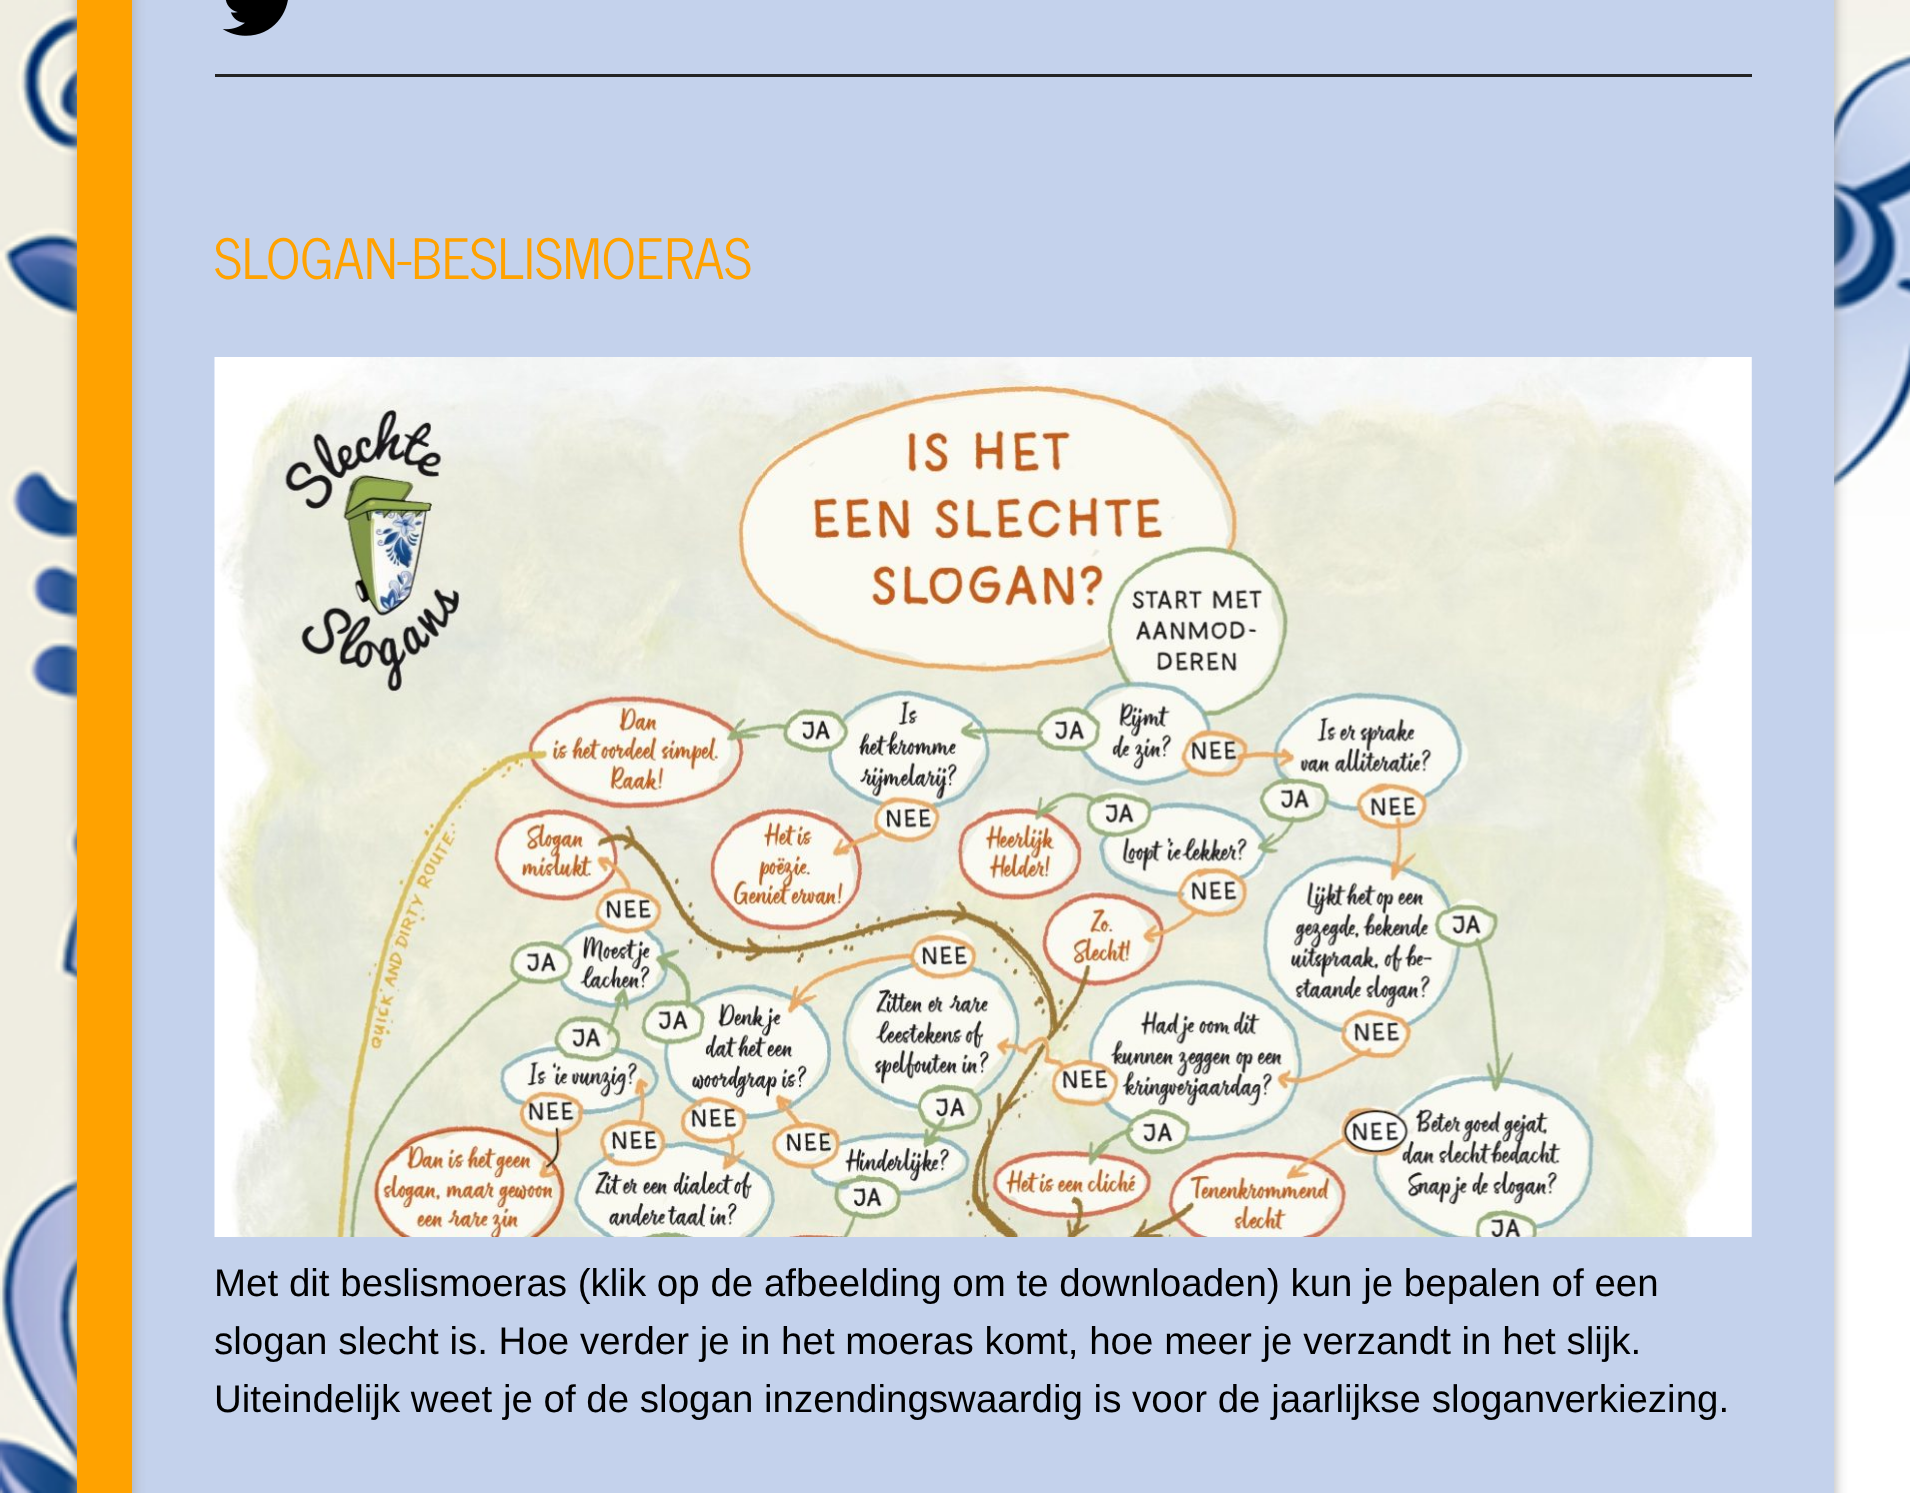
<svg xmlns="http://www.w3.org/2000/svg" width="1910" height="1493">
<style>
.a{font:55px News Cycle;fill:#ffa200}
.b{font:38.5px Liberation Sans;fill:#000}
</style>
<rect width="100%" height="100%" fill="#fff"/>
<image href="1.png" x="0" y="0" width="1910" height="1493"/>
<path fill="#a9a9a9" filter="blur(7px)" d="M132 -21h1702v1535H132z"/>
<path fill="#c4d2ec" d="M132 0h1702v1493H132z"/>
<path fill="#a9a9a9" filter="blur(7px)" d="M77 -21h55v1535H77z"/>
<path fill="#ffa200" d="M77 0h55v1493H77z"/>
<path fill="#242424" d="M215 74h1537v3H215z"/>
<image href="2.png" x="222" y="0" width="66" height="36"/>
<image href="3.png" x="214" y="357" width="1538" height="880"/>
<text class="a" x="214" y="279">SLOGAN-BESLISMOERAS</text>
<text class="b" x="214" y="1296">Met dit beslismoeras (klik op de afbeelding om te downloaden) kun je bepalen of een</text>
<text class="b" x="214" y="1354">slogan slecht is. Hoe verder je in het moeras komt, hoe meer je verzandt in het slijk.</text>
<text class="b" x="214" y="1412">Uiteindelijk weet je of de slogan inzendingswaardig is voor de jaarlijkse sloganverkiezing.</text>
</svg>
